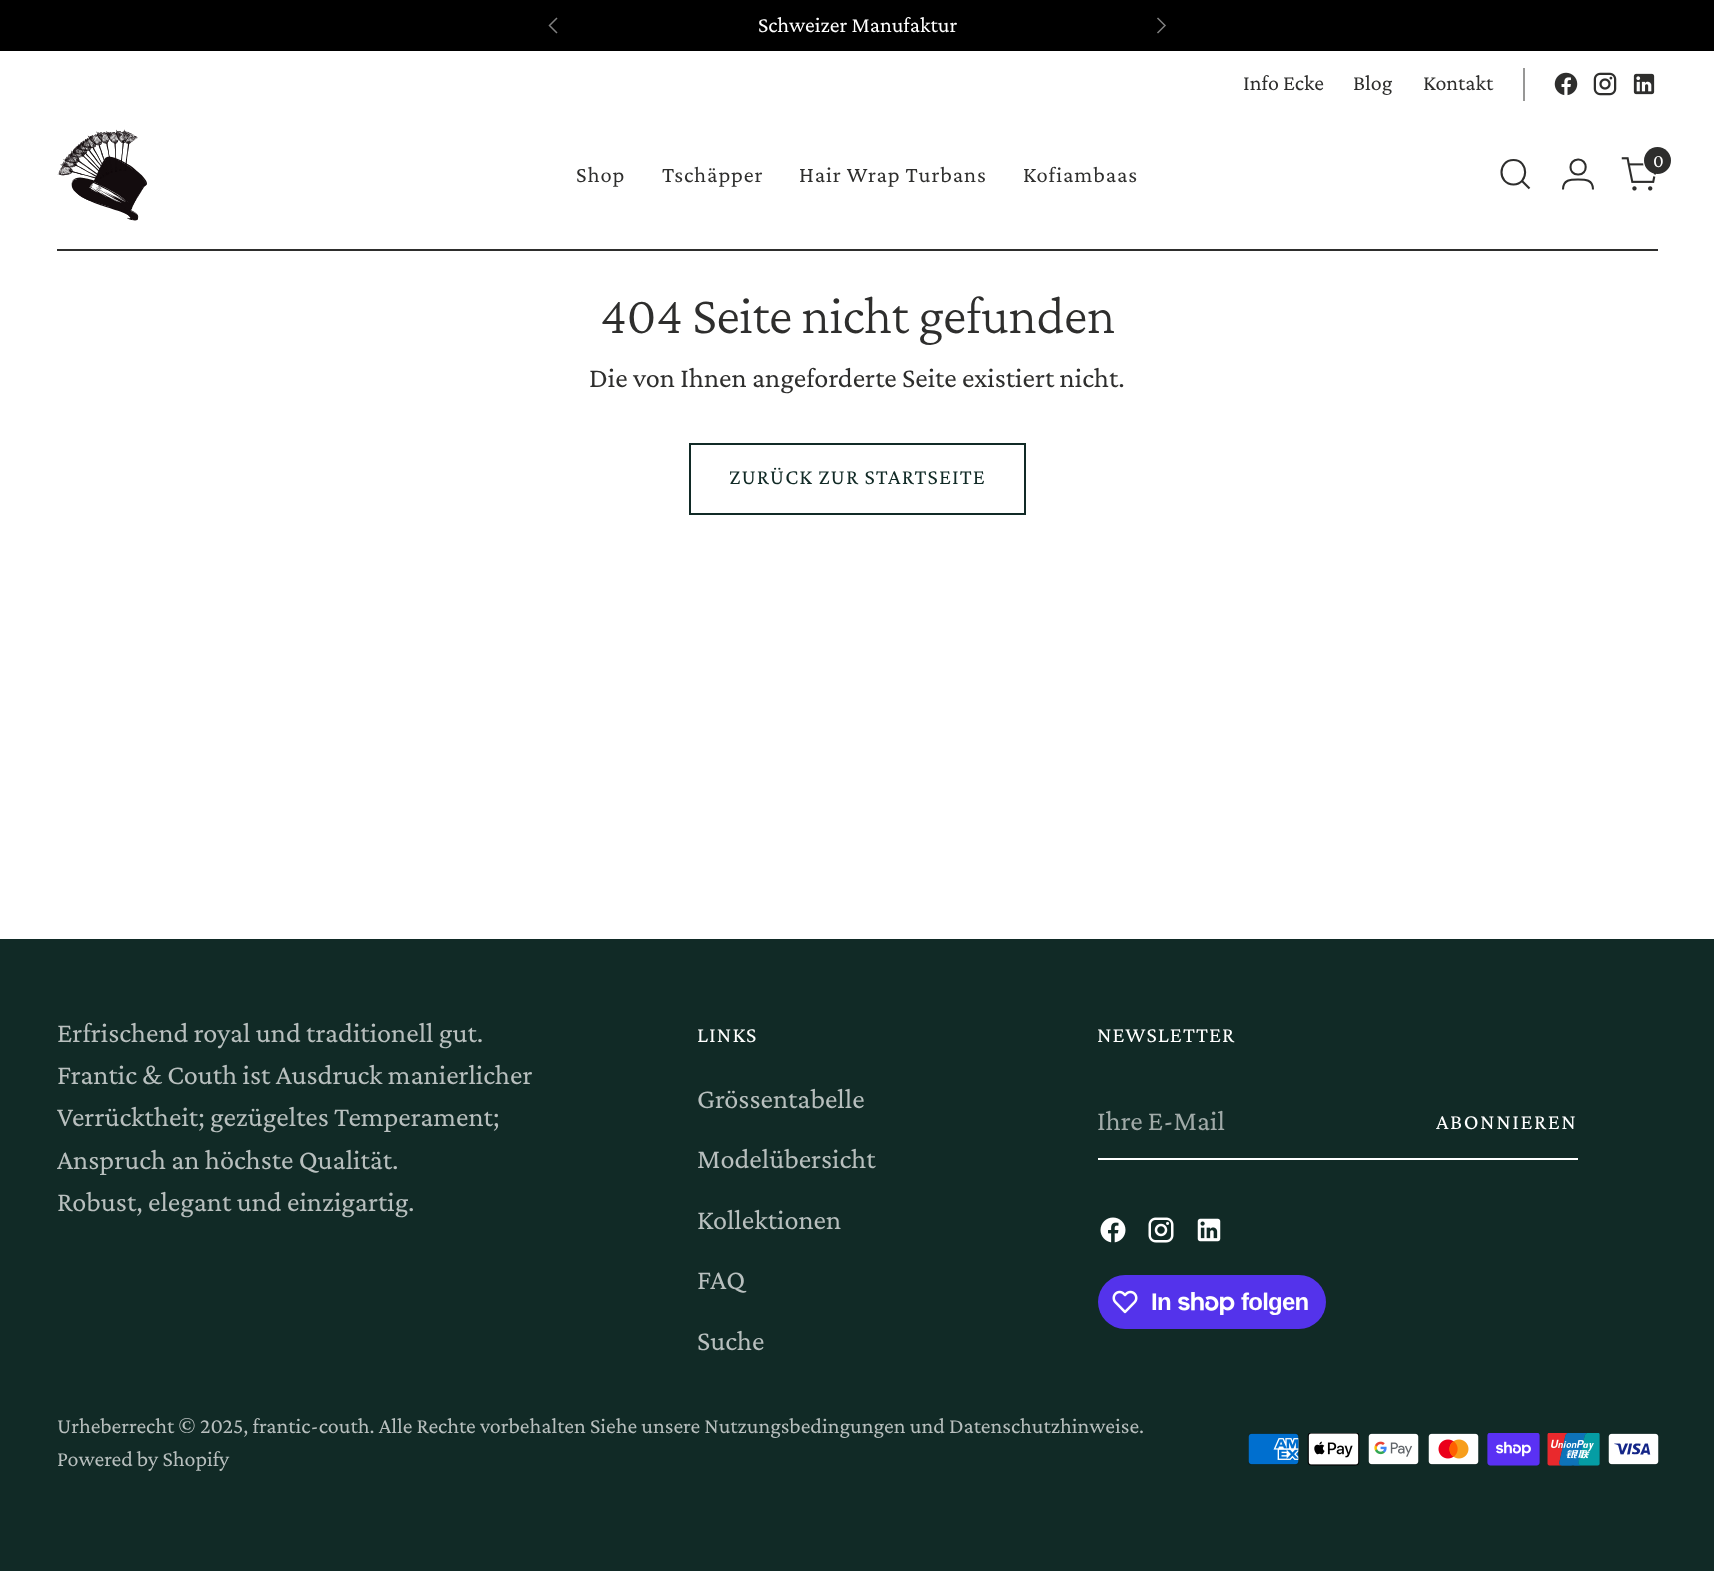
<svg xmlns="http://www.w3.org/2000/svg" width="1714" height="1571">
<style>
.a{font:22px Crimson Pro;fill:#fff}
.b{font:22px Crimson Pro;fill:#2e2e2d}
.c{font:19px Crimson Pro;fill:#fff}
.d{font:22.5px Crimson Pro;letter-spacing:0.9px;fill:#2e2e2d}
.e{font:300 53.9px Crimson Pro;letter-spacing:-0.5px;fill:#2e2e2d}
.f{font:28.25px Crimson Pro;fill:#2e2e2d}
.g{font:22px Crimson Pro;letter-spacing:1.1px;fill:#112a26}
.h{font:28.25px Crimson Pro;fill:#b8bfbe}
.i{font:22px Crimson Pro;letter-spacing:1.1px;fill:#fff}
.j{font:28.25px Crimson Pro;fill:#a0aaa8}
.k{font:22px Crimson Pro;letter-spacing:1.6px;fill:#fff}
.l{font:bold 24px Liberation Sans;letter-spacing:-0.75px;fill:#fff}
.m{font:22px Crimson Pro;fill:#b8bfbe}
</style>
<rect width="100%" height="100%" fill="#fff"/>
<path fill="#000" d="M0 0h1714v51H0z"/>
<path fill="none" stroke="#808080" stroke-width="1.5" d="M557 18l-7.5 7.5l7.5 7.5"/>
<path fill="none" stroke="#808080" stroke-width="1.5" d="M1157.5 33l7.5-7.5l-7.5-7.5"/>
<path fill="#2e2e2d" d="M57 249h1601v2H57z"/>
<path fill="#979796" d="M1523 68h2v33H1523z"/>
<image href="1.png" x="1554" y="72" width="24" height="24"/>
<image href="2.png" x="1593" y="72" width="24" height="24"/>
<image href="3.png" x="1633" y="73" width="22" height="22"/>
<image href="4.png" x="57" y="129" width="90" height="92"/>
<path fill="none" stroke="#2e2e2d" stroke-width="2.1" stroke-linecap="round" d="M1513.5 184.5c15.5 0 15.5-24.5 0-24.5c-16 0-16 24.5 0 24.5z"/>
<path fill="none" stroke="#2e2e2d" stroke-width="2.1" d="M1522 181l7.5 7.5"/>
<path fill="none" stroke="#2e2e2d" stroke-width="2.1" d="M1578 174.5c10.5 .5 10-15.5 0-15c-10 .5-10 15 0 15zm-15 15c0-10 7.5-10 15-10c7.5 0 15 0 15 10"/>
<image href="5.png" x="1621" y="157" width="35" height="34"/>
<circle fill="none" stroke="#fff" stroke-width="2" cx="1658.5" cy="161.5" r="14.5"/>
<circle fill="#2e2e2d" cx="1657.5" cy="160.5" r="13.5"/>
<path fill="none" stroke="#112a26" stroke-width="2" d="M690 444h335v70H690z"/>
<path fill="#112a26" d="M0 939h1714v632H0z"/>
<path fill="#fff" d="M1098 1158h480v2H1098z"/>
<image href="6.png" x="1100" y="1217" width="26" height="26"/>
<image href="7.png" x="1148" y="1217" width="26" height="26"/>
<image href="8.png" x="1197" y="1218" width="24" height="24"/>
<rect fill="#5433eb" x="1098" y="1275" width="228" height="54" rx="27"/>
<image href="9.png" x="1112" y="1290" width="26" height="24"/>
<image href="10.png" x="1178" y="1292" width="57" height="23"/>
<image href="11.png" x="1248" y="1433" width="51" height="32"/>
<image href="12.png" x="1307" y="1433" width="53" height="33"/>
<image href="13.png" x="1368" y="1433" width="51" height="32"/>
<image href="14.png" x="1428" y="1433" width="51" height="32"/>
<image href="15.png" x="1487" y="1433" width="53" height="33"/>
<image href="16.png" x="1547" y="1433" width="53" height="33"/>
<image href="17.png" x="1608" y="1433" width="51" height="32"/>
<text class="a" x="758" y="32">Schweizer Manufaktur</text>
<text class="b" x="1243" y="90">Info Ecke</text>
<text class="b" x="1353" y="90">Blog</text>
<text class="b" x="1423" y="90">Kontakt</text>
<text class="c" x="1653" y="167">0</text>
<text class="d" x="576" y="182">Shop</text>
<text class="d" x="662" y="182">Tschäpper</text>
<text class="d" x="799" y="182">Hair Wrap Turbans</text>
<text class="d" x="1023" y="182">Kofiambaas</text>
<text class="e" x="600" y="333">404 Seite nicht gefunden</text>
<text class="f" x="589" y="387">Die von Ihnen angeforderte Seite existiert nicht.</text>
<text class="g" x="729" y="484">ZURÜCK ZUR STARTSEITE</text>
<text class="h" x="57" y="1042">Erfrischend royal und traditionell gut.</text>
<text class="h" x="57" y="1084">Frantic &amp; Couth ist Ausdruck manierlicher</text>
<text class="h" x="57" y="1126">Verrücktheit; gezügeltes Temperament;</text>
<text class="h" x="57" y="1169">Anspruch an höchste Qualität.</text>
<text class="h" x="57" y="1211">Robust, elegant und einzigartig.</text>
<text class="i" x="697" y="1042">LINKS</text>
<text class="h" x="697" y="1108">Grössentabelle</text>
<text class="h" x="697" y="1168">Modelübersicht</text>
<text class="h" x="697" y="1229">Kollektionen</text>
<text class="h" x="697" y="1289">FAQ</text>
<text class="h" x="697" y="1350">Suche</text>
<text class="i" x="1097" y="1042">NEWSLETTER</text>
<text class="j" x="1097" y="1130">Ihre E-Mail</text>
<text class="k" x="1436" y="1129">ABONNIEREN</text>
<text class="l" x="1151" y="1310">In</text>
<text class="l" x="1241" y="1310">folgen</text>
<text class="m" x="57" y="1433">Urheberrecht © 2025, frantic-couth. Alle Rechte vorbehalten Siehe unsere Nutzungsbedingungen und Datenschutzhinweise.</text>
<text class="m" x="57" y="1466">Powered by Shopify</text>
</svg>
